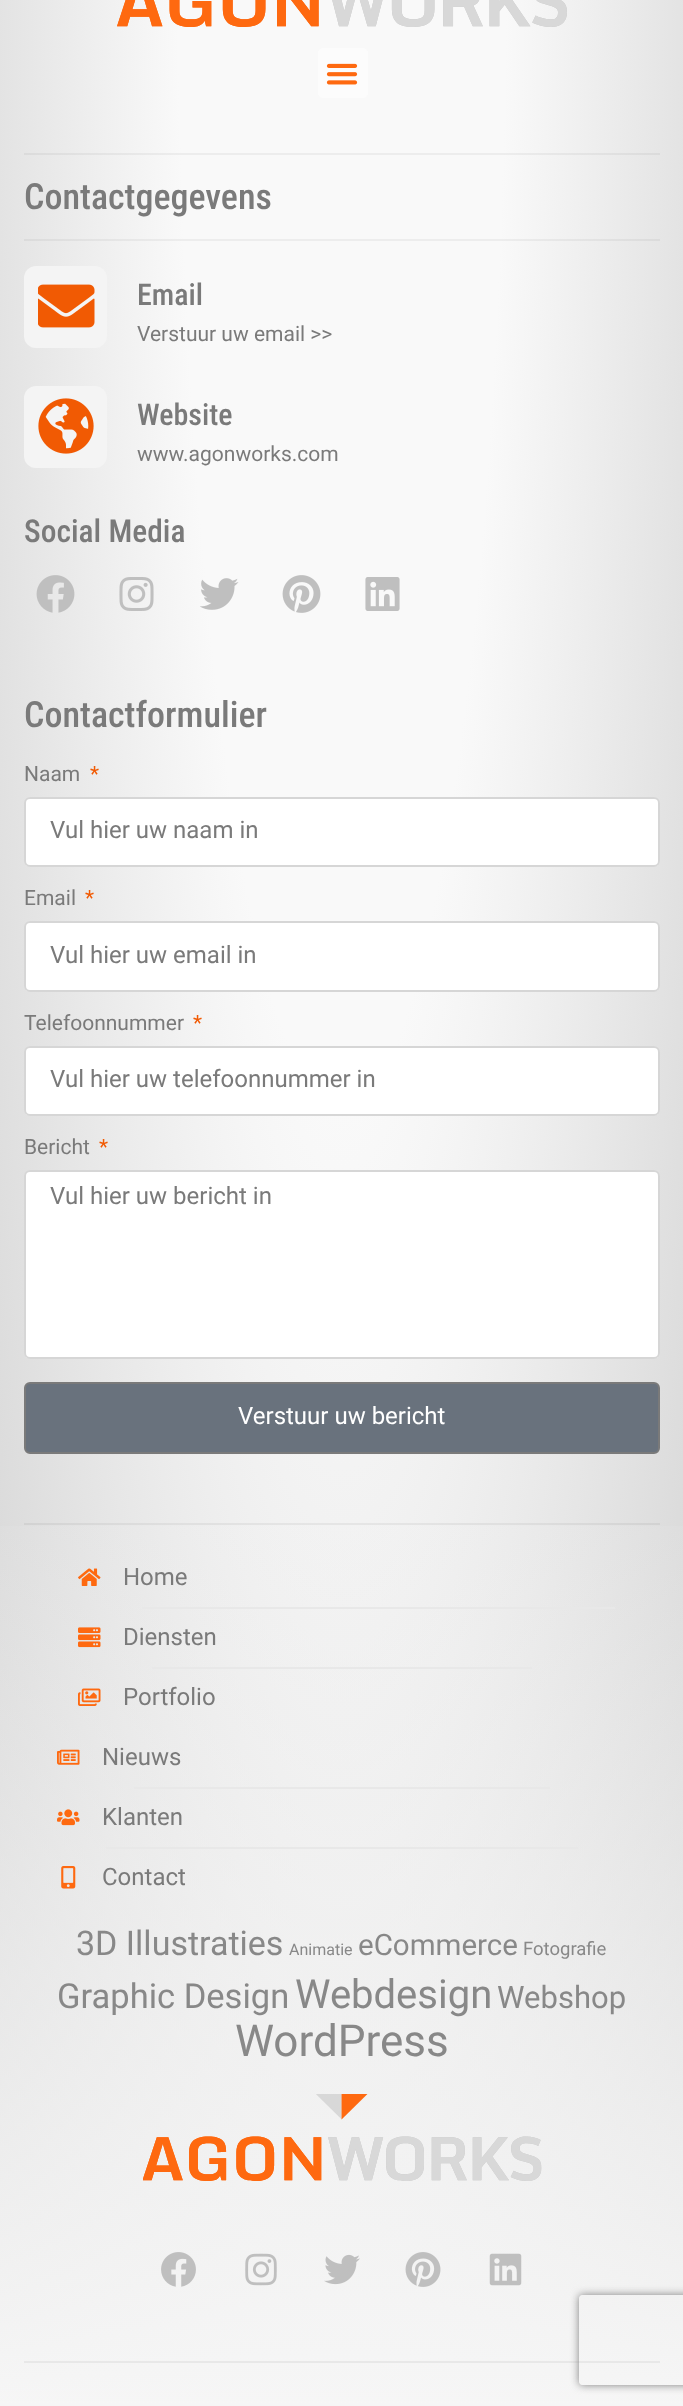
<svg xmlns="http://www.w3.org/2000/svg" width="683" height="2406">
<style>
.a{font:500 36px Roboto Condensed;fill:#7a7a7a}
.b{font:500 30px Roboto Condensed;fill:#7a7a7a}
.c{font:21px Roboto;fill:#7a7a7a}
.d{font:500 31.5px Roboto Condensed;fill:#7a7a7a}
.e{font:21px Roboto;fill:#f15a03}
.f{font:24px Roboto;fill:#7a7a7a}
.g{font:24px Roboto;fill:#fff}
.h{font:34px Roboto;fill:#888}
.i{font:16px Roboto;fill:#888}
.j{font:29.5px Roboto;fill:#888}
.k{font:18.5px Roboto;fill:#888}
.l{font:34.5px Roboto;fill:#888}
.m{font:40px Roboto;fill:#888}
.n{font:31px Roboto;fill:#888}
.o{font:44px Roboto;fill:#888}
</style>
<defs>
<radialGradient id="g1" gradientUnits="userSpaceOnUse" cx="0" cy="0" r="1" gradientTransform="matrix(484 0 0 3540 342 -96)"><stop offset="0.34" stop-color="#f9f9f9"/><stop offset="1" stop-color="#d2d2d2"/></radialGradient>
<radialGradient id="g2" gradientUnits="userSpaceOnUse" cx="0" cy="0" r="1" gradientTransform="matrix(484 0 0 3540 342 -96)"><stop offset="0.34" stop-color="#ededed"/><stop offset="1" stop-color="#c8c8c8"/></radialGradient>
<linearGradient id="g3" gradientUnits="userSpaceOnUse" x1="342" y1="1454" x2="342" y2="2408"><stop offset="0" stop-color="#f6f6f6" stop-opacity="0"/><stop offset="1" stop-color="#f6f6f6"/></linearGradient>
<clipPath id="clip1"><path d="M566 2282h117v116h-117zm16 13h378c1.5 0 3 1.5 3 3v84c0 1.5-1.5 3-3 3h-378c-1.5 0-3-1.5-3-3v-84c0-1.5 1.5-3 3-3z" clip-rule="evenodd"/></clipPath>
</defs>
<rect width="100%" height="100%" fill="#fff"/>
<path fill="url(#g1)" d="M0 0h683v2402H0z"/>
<path fill="url(#g2)" d="M24 239h636v2H24z"/>
<path fill="url(#g2)" d="M24 153h636v2H24z"/>
<image href="1.png" x="117" y="0" width="450" height="27"/>
<rect fill="#fcfcfc" x="318" y="48" width="50" height="50" rx="5"/>
<image href="2.png" x="326" y="63" width="32" height="22"/>
<rect fill="#f4f4f4" x="24" y="266" width="83" height="82" rx="12"/>
<image href="3.png" x="38" y="284" width="57" height="44"/>
<rect fill="#f4f4f4" x="24" y="386" width="83" height="82" rx="12"/>
<image href="4.png" x="38" y="398" width="56" height="56"/>
<image href="5.png" x="36" y="575" width="39" height="38"/>
<image href="6.png" x="119" y="577" width="35" height="34"/>
<image href="7.png" x="200" y="578" width="39" height="32"/>
<image href="8.png" x="282" y="575" width="39" height="38"/>
<image href="9.png" x="365" y="577" width="35" height="34"/>
<rect fill="#fff" x="24" y="797" width="636" height="70" rx="6"/>
<rect fill="none" stroke="#00000029" stroke-width="2" x="25" y="798" width="634" height="68" rx="5"/>
<rect fill="#fff" x="24" y="921" width="636" height="71" rx="6"/>
<rect fill="none" stroke="#00000029" stroke-width="2" x="25" y="922" width="634" height="69" rx="5"/>
<rect fill="#fff" x="24" y="1046" width="636" height="70" rx="6"/>
<rect fill="none" stroke="#00000029" stroke-width="2" x="25" y="1047" width="634" height="68" rx="5"/>
<rect fill="#fff" x="24" y="1170" width="636" height="189" rx="6"/>
<rect fill="none" stroke="#00000029" stroke-width="2" x="25" y="1171" width="634" height="187" rx="5"/>
<rect fill="#69727d" stroke="#7a7a7a" stroke-width="2" x="25" y="1383" width="634" height="70" rx="5"/>
<path fill="url(#g3)" d="M0 1526h683v880H0z"/>
<path fill="#e8e8e8" d="M24 2361h636v2H24z"/>
<g clip-path="url(#clip1)">
<rect fill="#808080" filter="blur(4px)" x="579" y="2295" width="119" height="90" rx="3"/>
</g>
<path fill="#0000000d" d="M24 1523h636v2H24z"/>
<image href="10.png" x="78" y="1568" width="23" height="18"/>
<path fill="#e8e8e8" d="M142 1607h473v2H142z"/>
<image href="11.png" x="78" y="1627" width="23" height="21"/>
<path fill="#e8e8e8" d="M152 1667h380v2H152z"/>
<image href="12.png" x="78" y="1688" width="23" height="18"/>
<image href="13.png" x="57" y="1749" width="23" height="16"/>
<path fill="#e8e8e8" d="M134 1787h416v2H134z"/>
<image href="14.png" x="57" y="1809" width="23" height="17"/>
<path fill="#e8e8e8" d="M106 1847h472v2H106z"/>
<image href="15.png" x="61" y="1866" width="15" height="23"/>
<image href="16.png" x="143" y="2094" width="399" height="87"/>
<image href="17.png" x="161" y="2252" width="35" height="35"/>
<image href="18.png" x="245" y="2253" width="32" height="33"/>
<image href="19.png" x="324" y="2254" width="36" height="31"/>
<image href="20.png" x="405" y="2252" width="36" height="35"/>
<image href="21.png" x="489" y="2253" width="33" height="33"/>
<text class="a" x="24" y="209">Contactgegevens</text>
<text class="b" x="137" y="305">Email</text>
<text class="c" x="137" y="341">Verstuur uw email &gt;&gt;</text>
<text class="b" x="137" y="425">Website</text>
<text class="c" x="137" y="461">www.agonworks.com</text>
<text class="d" x="24" y="542">Social Media</text>
<text class="a" x="24" y="727">Contactformulier</text>
<text class="c" x="24" y="781">Naam</text>
<text class="e" x="90" y="781">*</text>
<text class="f" x="50" y="838">Vul hier uw naam in</text>
<text class="c" x="24" y="905">Email</text>
<text class="e" x="85" y="905">*</text>
<text class="f" x="50" y="963">Vul hier uw email in</text>
<text class="c" x="24" y="1030">Telefoonnummer</text>
<text class="e" x="193" y="1030">*</text>
<text class="f" x="50" y="1087">Vul hier uw telefoonnummer in</text>
<text class="c" x="24" y="1154">Bericht</text>
<text class="e" x="99" y="1154">*</text>
<text class="f" x="50" y="1204">Vul hier uw bericht in</text>
<text class="g" x="238" y="1424">Verstuur uw bericht</text>
<text class="f" x="123" y="1585">Home</text>
<text class="f" x="123" y="1645">Diensten</text>
<text class="f" x="123" y="1705">Portfolio</text>
<text class="f" x="102" y="1765">Nieuws</text>
<text class="f" x="102" y="1825">Klanten</text>
<text class="f" x="102" y="1885">Contact</text>
<text class="h" x="76" y="1955">3D Illustraties</text>
<text class="i" x="289" y="1955">Animatie</text>
<text class="j" x="358" y="1955">eCommerce</text>
<text class="k" x="523" y="1955">Fotografie</text>
<text class="l" x="57" y="2008">Graphic Design</text>
<text class="m" x="295" y="2008">Webdesign</text>
<text class="n" x="497" y="2008">Webshop</text>
<text class="o" x="235" y="2056">WordPress</text>
</svg>
